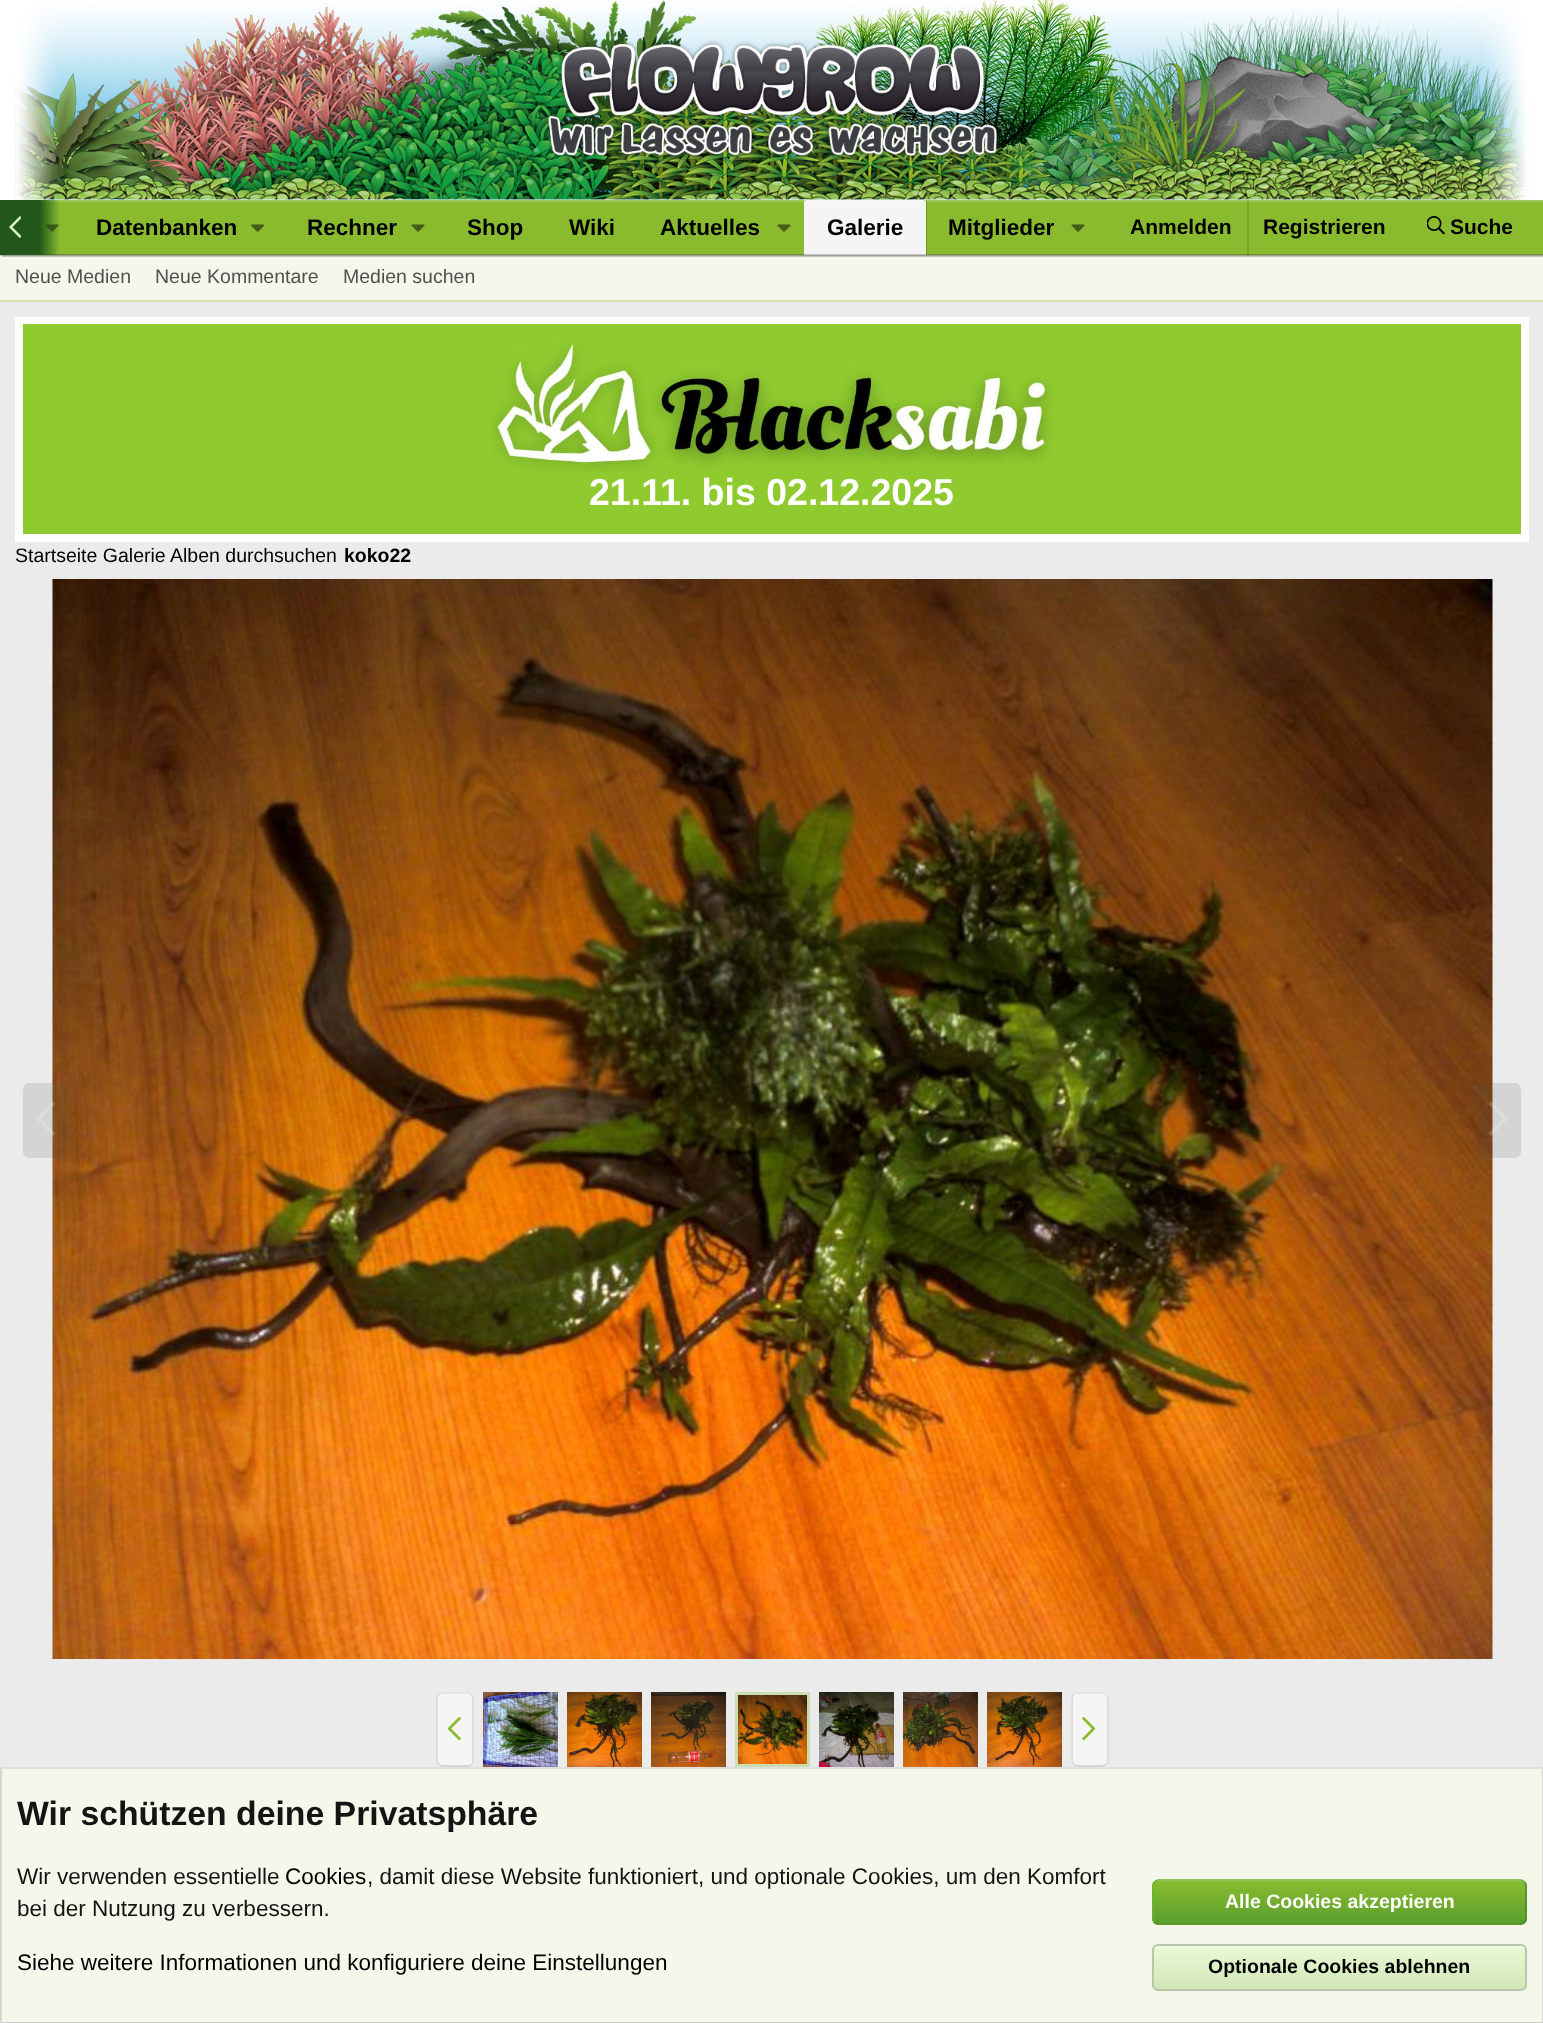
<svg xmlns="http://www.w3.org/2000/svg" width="1543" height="2023">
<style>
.a{font:bold 22.5px Liberation Sans;fill:#000}
.b{font:bold 21px Liberation Sans;fill:#000}
.c{font:19.5px Liberation Sans;fill:#505050}
.d{font:bold 37.5px Liberation Sans;fill:#fff}
.e{font:19.5px Liberation Sans;fill:#000}
.f{font:bold 19.5px Liberation Sans;fill:#000}
.g{font:bold 33.75px Liberation Sans;fill:#141414}
.h{font:22.5px Liberation Sans;fill:#141414}
.i{font:22.5px Liberation Sans;fill:#000}
.j{font:bold 19.5px Liberation Sans;fill:#fff}
</style>
<defs>
<linearGradient id="g1" gradientUnits="userSpaceOnUse" x1="0" y1="227" x2="60" y2="227"><stop offset="0.66" stop-color="#21571b"/><stop offset="1" stop-color="#21571b" stop-opacity="0"/></linearGradient>
<clipPath id="clip1"><path d="M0 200h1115v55H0z"/></clipPath>
<clipPath id="clip2"><path d="M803 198h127v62h-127zm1 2h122v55h-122z" clip-rule="evenodd"/></clipPath>
<clipPath id="clip3"><rect x="1152" y="1880" width="375" height="45" rx="6"/></clipPath>
<linearGradient id="g2" gradientUnits="userSpaceOnUse" x1="1340" y1="1881" x2="1340" y2="1923"><stop offset="0" stop-color="#8abb2f"/><stop offset="1" stop-color="#5aa02e"/></linearGradient>
<linearGradient id="g3" gradientUnits="userSpaceOnUse" x1="1340" y1="1923" x2="1340" y2="1965"><stop offset="0" stop-color="#8abb2f"/><stop offset="1" stop-color="#5aa02e"/></linearGradient>
<clipPath id="clip4"><rect x="1152" y="1944" width="375" height="47" rx="6"/></clipPath>
<linearGradient id="g4" gradientUnits="userSpaceOnUse" x1="1340" y1="1946" x2="1340" y2="1989"><stop offset="0" stop-color="#eafad4"/><stop offset="1" stop-color="#d2e5b8"/></linearGradient>
</defs>
<rect width="100%" height="100%" fill="#ebebeb"/>
<path fill="#fff" d="M0 0h1543v200H0z"/>
<image href="1.png" x="15" y="0" width="1514" height="200"/>
<path fill="#f5f7ea" d="M0 255h1543v45H0z"/>
<path fill="#00000033" filter="blur(0.5px)" d="M2 201h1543v56H2z"/>
<path fill="#8abb2f" d="M40 202h1503v53H40z"/>
<path fill="#a1c959" d="M40 200h1503v2H40z"/>
<path fill="#00000033" d="M0 254h1543v2H0z"/>
<image href="3.png" x="45" y="224" width="14" height="8"/>
<path fill="url(#g1)" d="M0 200h60v55H0z"/>
<image href="2.png" x="9" y="216" width="12" height="22"/>
<image href="4.png" x="251" y="224" width="13" height="8"/>
<image href="3.png" x="411" y="224" width="14" height="8"/>
<image href="3.png" x="777" y="224" width="14" height="8"/>
<path fill="#f5f5f5" d="M807 200h116c1.5 0 3 1.5 3 3v52h-122v-52c0-1.5 1.5-3 3-3z"/>
<g clip-path="url(#clip1)">
<g clip-path="url(#clip2)">
<path fill="#00000033" filter="blur(0.5px)" d="M806 201h121v56H806z"/>
</g>
</g>
<path fill="#ffffff33" d="M804 200h2v3H804z"/>
<path fill="#ffffff33" d="M804 200h122v2H804z"/>
<path fill="#00000033" d="M804 254h122v1H804z"/>
<image href="3.png" x="1071" y="224" width="14" height="8"/>
<path fill="#14141426" d="M1247 200h2v55H1247z"/>
<image href="5.png" x="1427" y="216" width="18" height="19"/>
<path fill="#d6e0ad" d="M0 300h1543v2H0z"/>
<path fill="#fff" d="M15 317h1514v225H15z"/>
<path fill="#8fcb2f" d="M23 324h1498v210H23z"/>
<image href="6.png" x="489" y="340" width="565" height="132"/>
<image href="8.png" x="52" y="579" width="1441" height="1080"/>
<rect fill="#4f4f4f24" x="23" y="1083" width="45" height="75" rx="6"/>
<image href="7.png" x="36" y="1101" width="19" height="35"/>
<rect fill="#4f4f4f24" x="1476" y="1083" width="45" height="75" rx="6"/>
<image href="9.png" x="1489" y="1101" width="19" height="35"/>
<rect fill="#f5f5f5" x="437" y="1692" width="37" height="75" rx="6"/>
<path fill="none" stroke="#e0e0e0" stroke-width="1.5" d="M439 1694.5c1-1 2-1.5 3.5-1.5h25.5c1.5 0 2.5 .5 3.5 1.5"/>
<path fill="none" stroke="#d6d6d6" stroke-width="1.5" d="M471.5 1694.5c1 1 1.5 2 1.5 3.5v63c0 1.5-.5 2.5-1.5 3.5"/>
<path fill="none" stroke="#ccc" stroke-width="1.5" d="M471.5 1764.5c-1 1-2 1.5-3.5 1.5h-25.5c-1.5 0-2.5-.5-3.5-1.5"/>
<path fill="none" stroke="#d6d6d6" stroke-width="1.5" d="M439 1764.5c-1-1-2-2-2-3.5v-63c0-1.5 1-2.5 2-3.5"/>
<image href="10.png" x="447" y="1717" width="14" height="24"/>
<image href="11.png" x="483" y="1692" width="75" height="75"/>
<image href="12.png" x="567" y="1692" width="75" height="75"/>
<image href="13.png" x="651" y="1692" width="75" height="75"/>
<path fill="none" stroke="#c9ddae" stroke-width="3" d="M736.5 1693.5h72v72H736.5z"/>
<image href="14.png" x="738" y="1695" width="69" height="69"/>
<image href="15.png" x="819" y="1692" width="75" height="75"/>
<image href="16.png" x="903" y="1692" width="75" height="75"/>
<image href="17.png" x="987" y="1692" width="75" height="75"/>
<rect fill="#f5f5f5" x="1071" y="1692" width="38" height="75" rx="6"/>
<path fill="none" stroke="#e0e0e0" stroke-width="1.5" d="M1073.5 1694.5c1-1 2-1.5 3.5-1.5h25.5c1.5 0 2.5 .5 3.5 1.5"/>
<path fill="none" stroke="#d6d6d6" stroke-width="1.5" d="M1106 1694.5c1 1 2 2 2 3.5v63c0 1.5-1 2.5-2 3.5"/>
<path fill="none" stroke="#ccc" stroke-width="1.5" d="M1106 1764.5c-1 1-2 1.5-3.5 1.5h-25.5c-1.5 0-2.5-.5-3.5-1.5"/>
<path fill="none" stroke="#d6d6d6" stroke-width="1.5" d="M1073.5 1764.5c-1-1-1.5-2-1.5-3.5v-63c0-1.5 .5-2.5 1.5-3.5"/>
<image href="18.png" x="1082" y="1717" width="13" height="24"/>
<path fill="#f5f7ea" d="M2 1769h1540v253H2z"/>
<path fill="#e0e0e0" d="M0 1767h1543v2H0z"/>
<path fill="#d6d6d6" d="M1542 1767h1v256H1542z"/>
<path fill="#ccc" d="M0 2022h1543v1H0z"/>
<path fill="#d6d6d6" d="M0 1767h2v256H0z"/>
<g clip-path="url(#clip3)">
<path fill="url(#g2)" d="M1152 1881h375v42H1152z"/>
<path fill="url(#g3)" d="M1152 1923h375v2H1152z"/>
</g>
<path fill="none" stroke="#4f8c28" stroke-width="1.5" d="M1524.5 1882c1 1 1.5 2 1.5 3.5v33c0 1.5-.5 2.5-1.5 3.5c-1 1-2 2-3.5 2h-363c-1.5 0-2.5-1-3.5-2"/>
<path fill="none" stroke="#65b434" stroke-width="1.5" d="M1154.5 1922c-1-1-1.5-2-1.5-3.5v-33c0-1.5 .5-2.5 1.5-3.5c1-1 2-2 3.5-2h363c1.5 0 2.5 1 3.5 2"/>
<g clip-path="url(#clip4)">
<path fill="url(#g4)" d="M1152 1946h375v43H1152z"/>
</g>
<path fill="#f4fce9" d="M1158 1947h363c2 0 5 2 5 5v-1c0-3-2-5-5-5h-362c-3 0-5 2-5 5v1c0-3 2-5 4-5z"/>
<rect fill="none" stroke="#bac6a9" stroke-width="2" x="1153" y="1945" width="373" height="45" rx="5"/>
<text class="a" x="96" y="235">Datenbanken</text>
<text class="a" x="307" y="235">Rechner</text>
<text class="a" x="467" y="235">Shop</text>
<text class="a" x="569" y="235">Wiki</text>
<text class="a" x="660" y="235">Aktuelles</text>
<text class="a" x="827" y="235">Galerie</text>
<text class="a" x="948" y="235">Mitglieder</text>
<text class="b" x="1130" y="234">Anmelden</text>
<text class="b" x="1263" y="234">Registrieren</text>
<text class="b" x="1450" y="234">Suche</text>
<text class="c" x="15" y="283">Neue Medien</text>
<text class="c" x="155" y="283">Neue Kommentare</text>
<text class="c" x="343" y="283">Medien suchen</text>
<text class="d" x="589" y="505">21.11. bis 02.12.2025</text>
<text class="e" x="15" y="562">Startseite Galerie Alben durchsuchen</text>
<text class="f" x="344" y="562">koko22</text>
<text class="g" x="17" y="1825">Wir schützen deine Privatsphäre</text>
<text class="h" x="17" y="1884">Wir verwenden essentielle</text>
<text class="i" x="285" y="1884">Cookies</text>
<text class="h" x="367" y="1884">, damit diese Website funktioniert, und optionale Cookies, um den Komfort</text>
<text class="h" x="17" y="1916">bei der Nutzung zu verbessern.</text>
<text class="i" x="17" y="1970">Siehe weitere Informationen und konfiguriere deine Einstellungen</text>
<text class="j" x="1225" y="1908">Alle Cookies akzeptieren</text>
<text class="f" x="1208" y="1973">Optionale Cookies ablehnen</text>
</svg>
